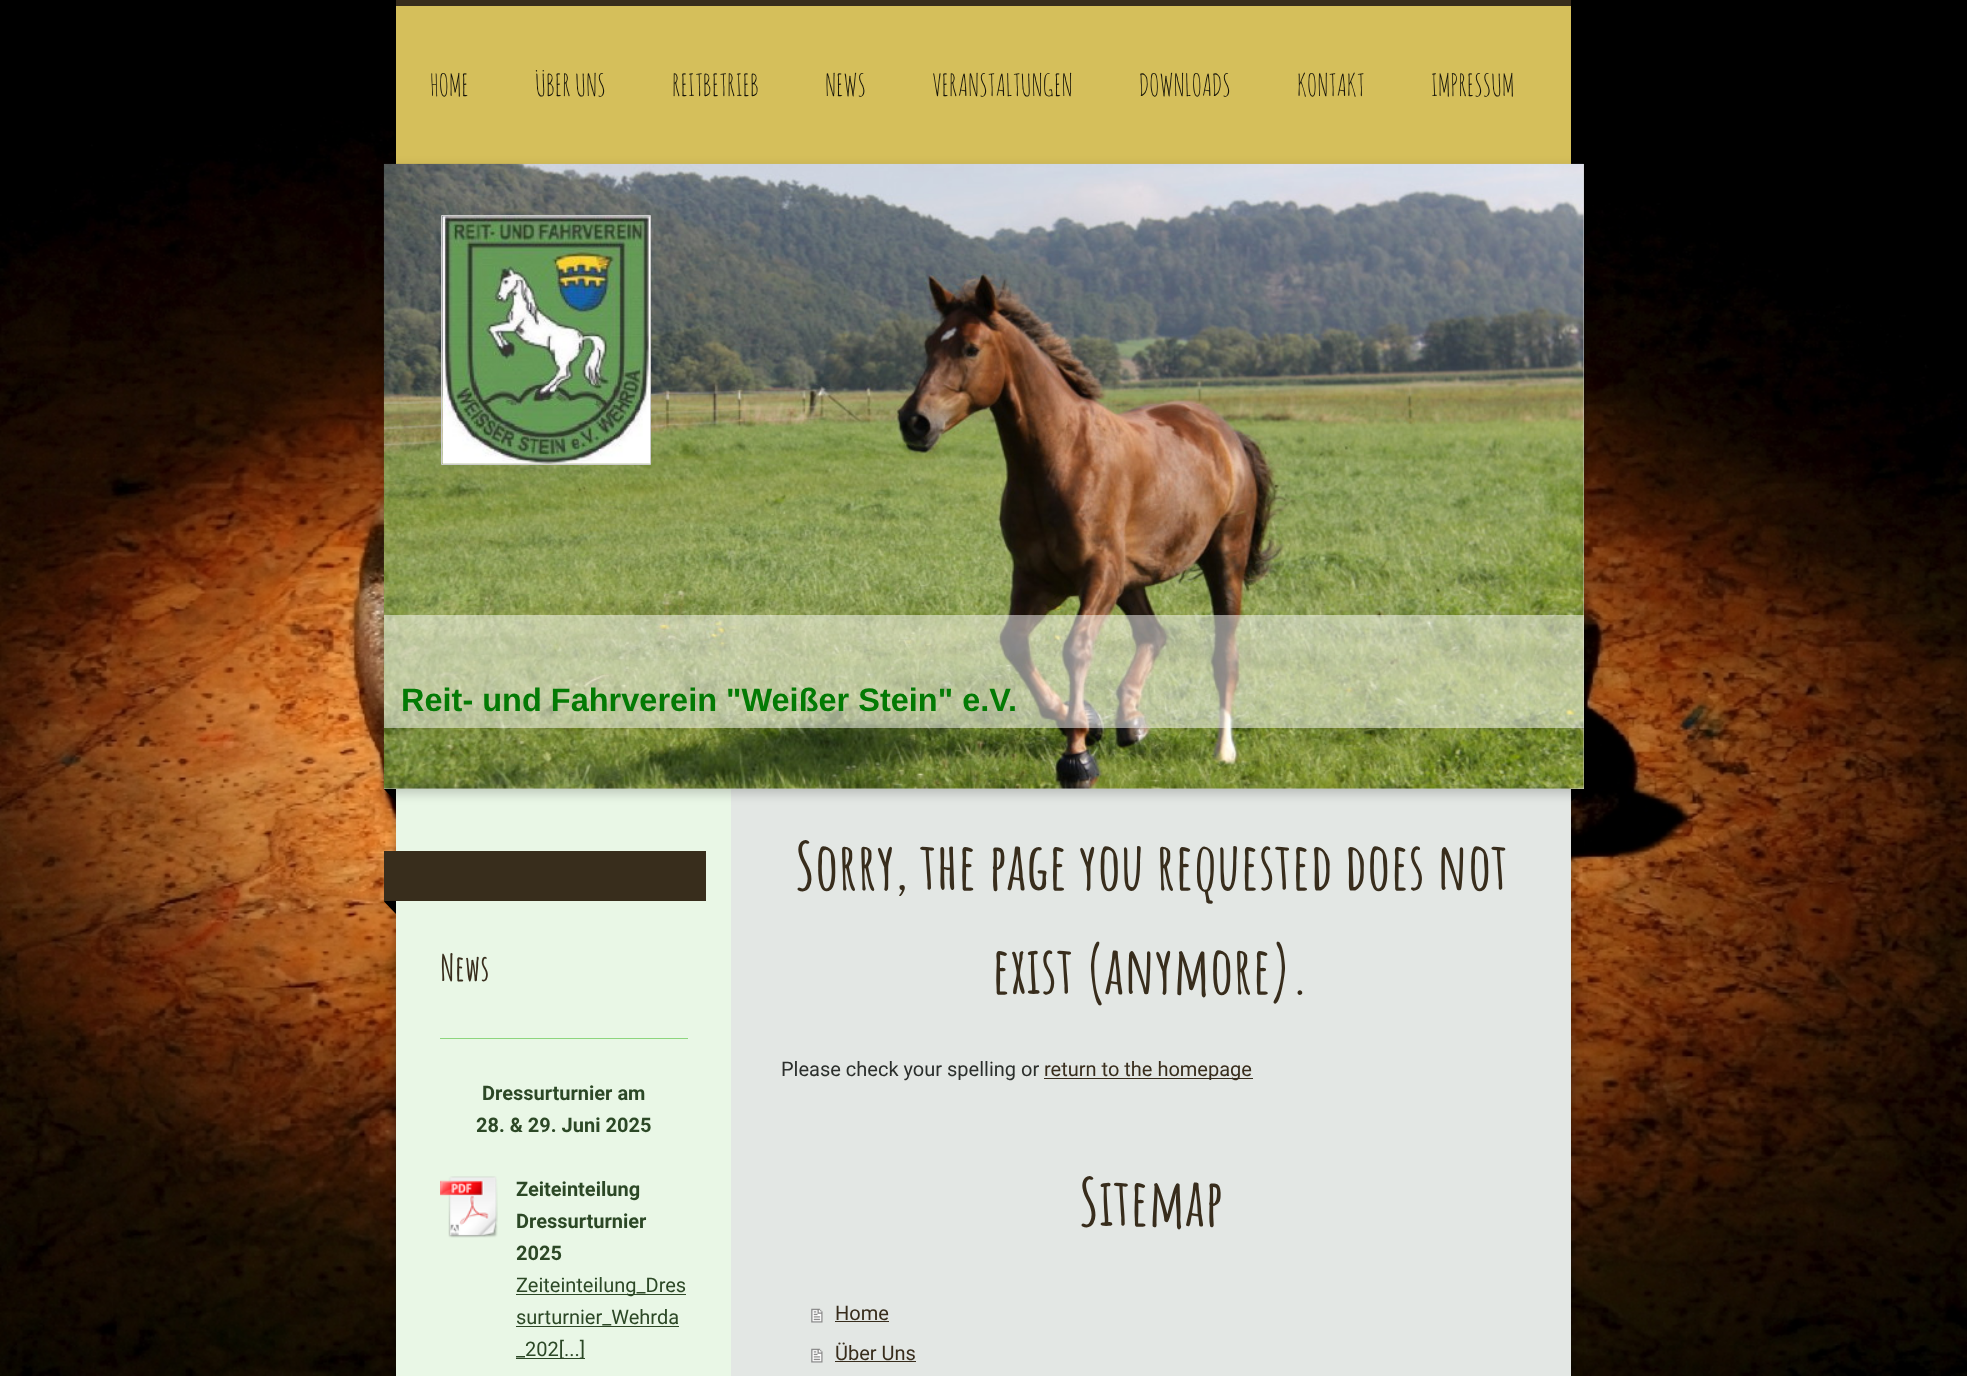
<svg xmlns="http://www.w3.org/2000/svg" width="1967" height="1376">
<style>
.a{font:30px Amatic SC;fill:#151309}
.b{font:bold 32.5px Liberation Sans;fill:#037a04}
.c{font:bold 65px Amatic SC;fill:#382d1c}
.d{font:20px Roboto;fill:#2b2f2c}
.e{font:20px Roboto;fill:#382d1c}
.f{font:bold 36px Amatic SC;fill:#382d1c}
.g{font:bold 20px Roboto;fill:#2c4826}
.h{font:20px Roboto;fill:#2c4826}
</style>
<rect width="100%" height="100%" fill="#fff"/>
<image href="1.png" x="0" y="0" width="1967" height="1376"/>
<path fill="#000" d="M396 889v25l-12-12.5z"/>
<path fill="#0000004d" filter="blur(6px)" d="M396 0h1175v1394H396z"/>
<path fill="#d5bf5b" d="M396 6h1175v158H396z"/>
<path fill="#382d1c" d="M396 0h1175v6H396z"/>
<path fill="#e3e7e4" d="M731 789h840v587H731z"/>
<path fill="#e9f7e6" d="M396 789h335v587H396z"/>
<path fill="#00000033" filter="blur(6px)" d="M384 168h1200v625H384z"/>
<path fill="#000" d="M396 776.5v25l-12-12.5z"/>
<path fill="#000" d="M1571.5 801.5v-25l12.5 12.5z"/>
<path fill="#ccc" d="M384 164h1200v625H384z"/>
<image href="2.png" x="383" y="163" width="1201" height="626"/>
<path fill="none" stroke="#ccc" d="M441.5 215.5h209v249H441.5z"/>
<image href="3.png" x="442" y="216" width="208" height="248"/>
<path fill="#ffffff80" d="M384 615h1200v113H384z"/>
<path fill="#382d1c" d="M1044 1078h209v1H1044z"/>
<image href="4.png" x="811" y="1308" width="12" height="15"/>
<path fill="#382d1c" d="M835 1321h54v1H835z"/>
<image href="4.png" x="811" y="1348" width="12" height="15"/>
<path fill="#382d1c" d="M835 1361h81v1H835z"/>
<path fill="#382d1c" d="M384 851h322v50H384z"/>
<path fill="#8dd67e" d="M440 1038h248v1H440z"/>
<image href="5.png" x="440" y="1176" width="58" height="62"/>
<path fill="#2c4826" d="M516 1294h170v1H516z"/>
<path fill="#2c4826" d="M516 1326h163v1H516z"/>
<path fill="#2c4826" d="M516 1358h69v1H516z"/>
<text class="a" x="430" y="96">HOME</text>
<text class="a" x="535" y="96">ÜBER UNS</text>
<text class="a" x="672" y="96">REITBETRIEB</text>
<text class="a" x="825" y="96">NEWS</text>
<text class="a" x="932" y="96">VERANSTALTUNGEN</text>
<text class="a" x="1139" y="96">DOWNLOADS</text>
<text class="a" x="1297" y="96">KONTAKT</text>
<text class="a" x="1431" y="96">IMPRESSUM</text>
<text class="b" x="401" y="711">Reit- und Fahrverein "Weißer Stein" e.V.</text>
<text class="c" x="795" y="890">Sorry, the page you requested does not</text>
<text class="c" x="992" y="994">exist (anymore).</text>
<text class="d" x="781" y="1076">Please check your spelling or</text>
<text class="e" x="1044" y="1076">return to the homepage</text>
<text class="c" x="1079" y="1226">Sitemap</text>
<text class="e" x="835" y="1320">Home</text>
<text class="e" x="835" y="1360">Über Uns</text>
<text class="f" x="440" y="981">News</text>
<text class="g" x="482" y="1100">Dressurturnier am</text>
<text class="g" x="476" y="1132">28. &amp; 29. Juni 2025</text>
<text class="g" x="516" y="1196">Zeiteinteilung</text>
<text class="g" x="516" y="1228">Dressurturnier</text>
<text class="g" x="516" y="1260">2025</text>
<text class="h" x="516" y="1292">Zeiteinteilung_Dres</text>
<text class="h" x="516" y="1324">surturnier_Wehrda</text>
<text class="h" x="516" y="1356">_202[...]</text>
</svg>
